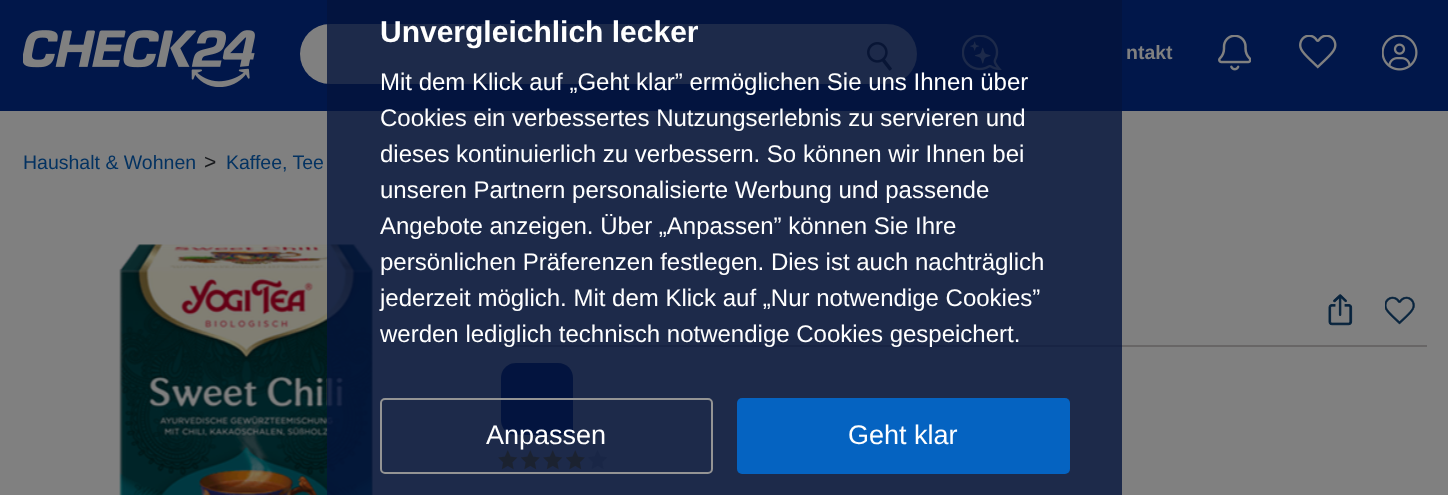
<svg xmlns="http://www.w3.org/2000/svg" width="1448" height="495">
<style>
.a{font:bold 30px Liberation Sans;fill:#fff}
.b{font:24px Liberation Sans;fill:#fff}
.c{font:27px Liberation Sans;fill:#fff}
.d{font:bold 19.5px Liberation Sans;fill:#808080}
.e{font:19.5px Liberation Sans;fill:#033261}
.f{font:21px Liberation Sans;fill:#17191c}
</style>
<rect width="100%" height="100%" fill="#808080"/>
<path fill="#01174a" d="M0 0h1448v111H0z"/>
<rect fill="#808080" x="300" y="24" width="617" height="60" rx="30"/>
<image href="2.png" x="867" y="42" width="25" height="29"/>
<image href="3.png" x="962" y="35" width="40" height="36"/>
<image href="7.png" x="119" y="244" width="254" height="251"/>
<path fill="#686666" d="M501 345h926v2H501z"/>
<path fill="#01174a" d="M516 363h42c8.5 0 15 6.5 15 15v57h-57c-8.5 0-15-6.5-15-15v-42c0-8.5 6.5-15 15-15z"/>
<image href="10.png" x="498" y="450" width="20" height="20"/>
<image href="11.png" x="521" y="450" width="19" height="20"/>
<image href="10.png" x="543" y="450" width="20" height="20"/>
<image href="11.png" x="566" y="450" width="19" height="20"/>
<image href="12.png" x="588" y="450" width="19" height="19"/>
<path fill="#04143ccc" d="M327 0h795v495H327z"/>
<rect fill="none" stroke="#949494" stroke-width="2" x="381" y="399" width="331" height="74" rx="4"/>
<rect fill="#0563c1" x="737" y="398" width="333" height="76" rx="5"/>
<image href="1.png" x="23" y="30" width="232" height="57"/>
<image href="4.png" x="1218" y="35" width="33" height="36"/>
<image href="5.png" x="1299" y="35" width="38" height="34"/>
<image href="6.png" x="1382" y="35" width="36" height="36"/>
<image href="8.png" x="1328" y="294" width="25" height="32"/>
<image href="9.png" x="1385" y="296" width="30" height="29"/>
<text class="a" x="380" y="42">Unvergleichlich lecker</text>
<text class="b" x="380" y="90">Mit dem Klick auf „Geht klar” ermöglichen Sie uns Ihnen über</text>
<text class="b" x="380" y="126">Cookies ein verbessertes Nutzungserlebnis zu servieren und</text>
<text class="b" x="380" y="162">dieses kontinuierlich zu verbessern. So können wir Ihnen bei</text>
<text class="b" x="380" y="198">unseren Partnern personalisierte Werbung und passende</text>
<text class="b" x="380" y="234">Angebote anzeigen. Über „Anpassen” können Sie Ihre</text>
<text class="b" x="380" y="270">persönlichen Präferenzen festlegen. Dies ist auch nachträglich</text>
<text class="b" x="380" y="306">jederzeit möglich. Mit dem Klick auf „Nur notwendige Cookies”</text>
<text class="b" x="380" y="342">werden lediglich technisch notwendige Cookies gespeichert.</text>
<text class="c" x="486" y="444">Anpassen</text>
<text class="c" x="848" y="444">Geht klar</text>
<text class="d" x="1126" y="59">ntakt</text>
<text class="e" x="23" y="169">Haushalt &amp; Wohnen</text>
<text class="f" x="204" y="169">&gt;</text>
<text class="e" x="226" y="169">Kaffee, Tee</text>
</svg>
